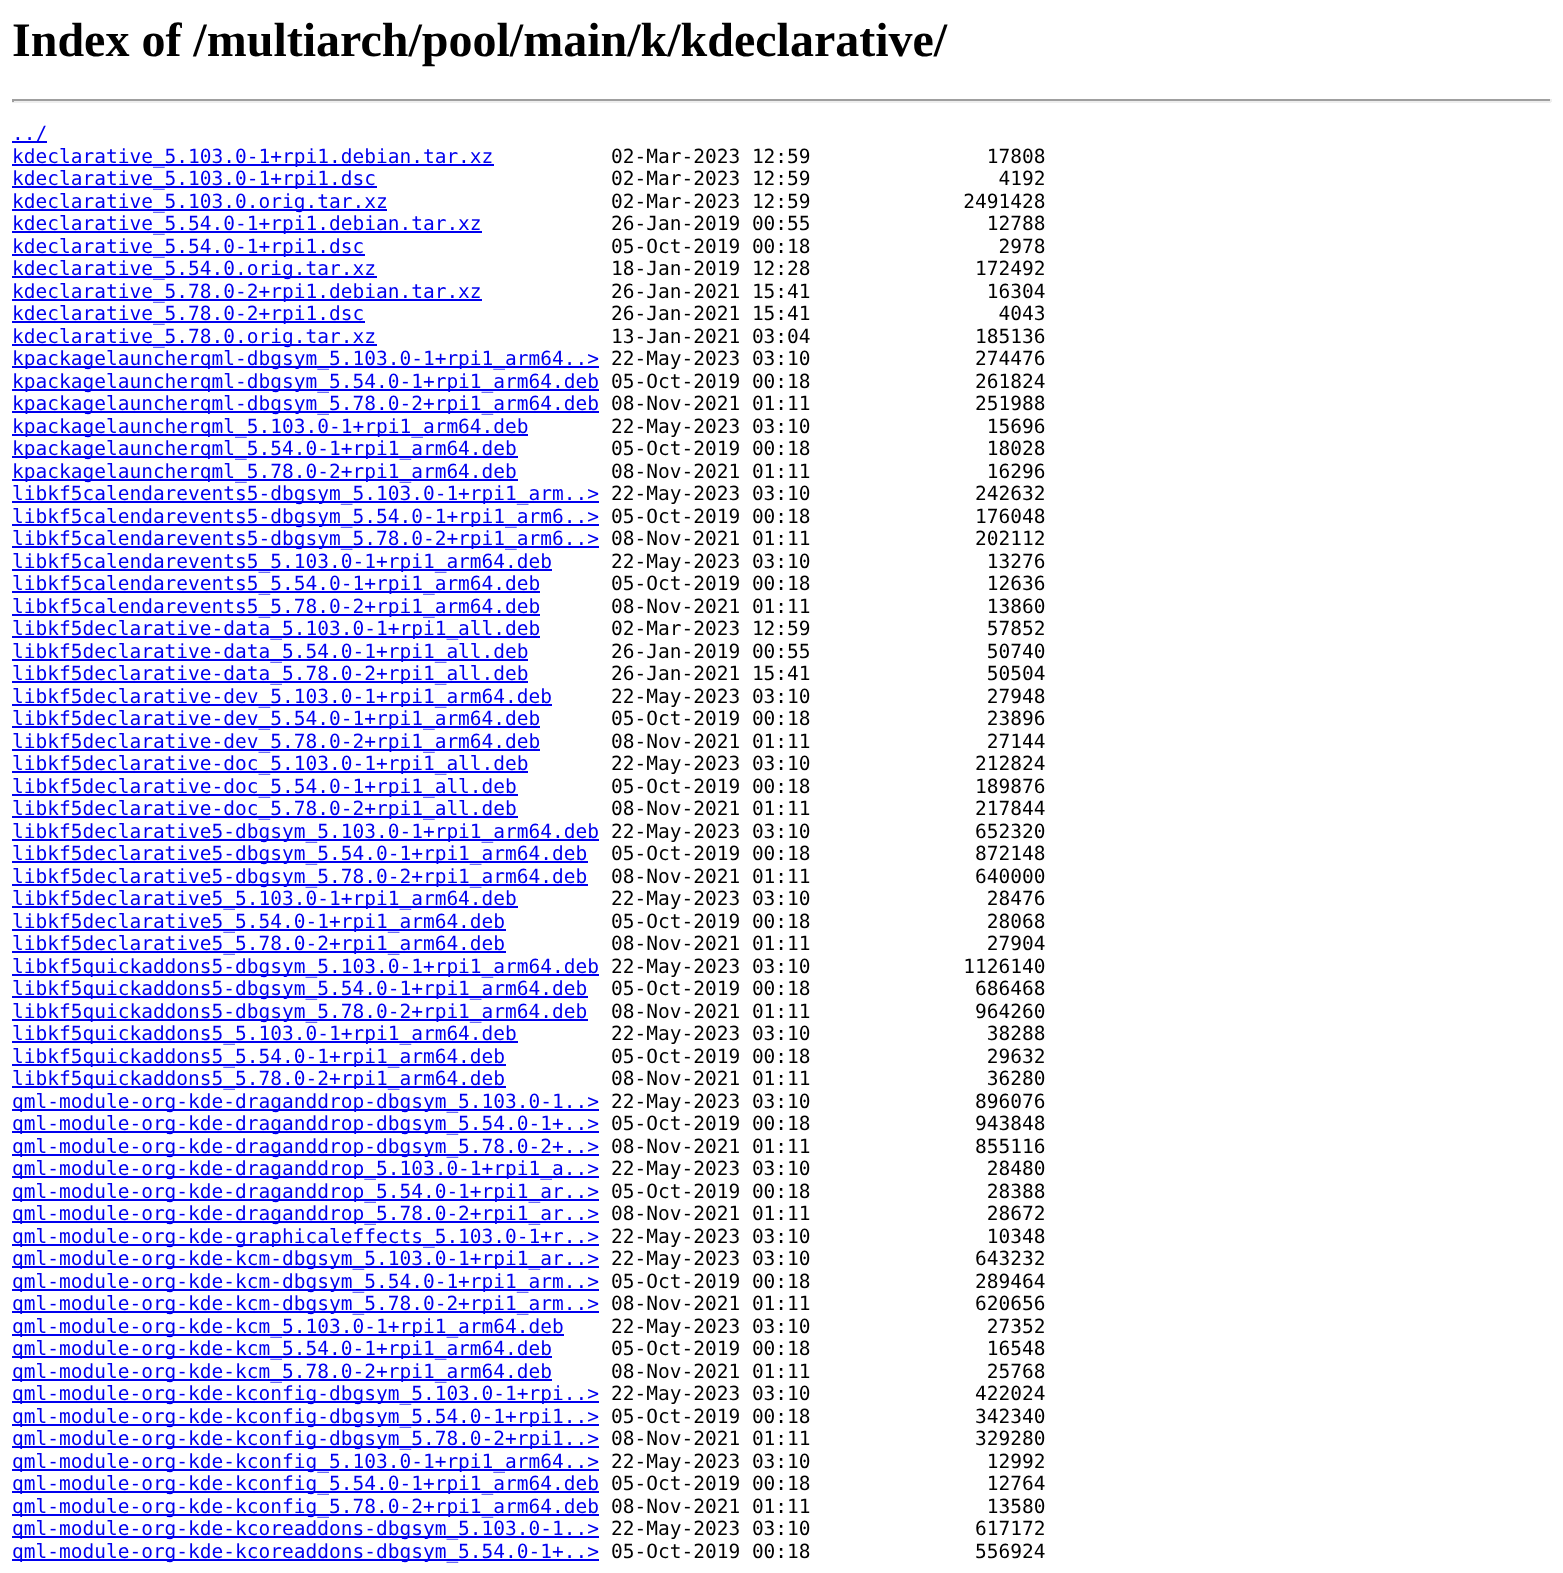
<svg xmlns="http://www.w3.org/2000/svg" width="1563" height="1573">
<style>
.a{font:bold 48px Liberation Serif;fill:#000}
.b{font:19.5px DejaVu Sans Mono;fill:#00e}
.c{font:19.5px DejaVu Sans Mono;fill:#000}
</style>
<rect width="100%" height="100%" fill="#fff"/>
<path fill="#9f9f9f" d="M12 99h1539v2H12z"/>
<path fill="#eee" d="M1550 99h2v3H1550z"/>
<path fill="#eee" d="M12 101h1539v2H12z"/>
<path fill="#9f9f9f" d="M12 99h2v3H12z"/>
<path fill="#00e" d="M12 141h35v2H12z"/>
<path fill="#00e" d="M12 164h482v2H12z"/>
<path fill="#00e" d="M12 186h365v2H12z"/>
<path fill="#00e" d="M12 209h375v2H12z"/>
<path fill="#00e" d="M12 231h470v2H12z"/>
<path fill="#00e" d="M12 254h353v2H12z"/>
<path fill="#00e" d="M12 276h365v2H12z"/>
<path fill="#00e" d="M12 299h470v2H12z"/>
<path fill="#00e" d="M12 321h353v2H12z"/>
<path fill="#00e" d="M12 344h365v2H12z"/>
<path fill="#00e" d="M12 366h587v2H12z"/>
<path fill="#00e" d="M12 389h587v2H12z"/>
<path fill="#00e" d="M12 411h587v2H12z"/>
<path fill="#00e" d="M12 434h516v2H12z"/>
<path fill="#00e" d="M12 456h506v2H12z"/>
<path fill="#00e" d="M12 479h506v2H12z"/>
<path fill="#00e" d="M12 501h587v2H12z"/>
<path fill="#00e" d="M12 524h587v2H12z"/>
<path fill="#00e" d="M12 546h587v2H12z"/>
<path fill="#00e" d="M12 569h540v2H12z"/>
<path fill="#00e" d="M12 591h528v2H12z"/>
<path fill="#00e" d="M12 614h528v2H12z"/>
<path fill="#00e" d="M12 636h528v2H12z"/>
<path fill="#00e" d="M12 659h516v2H12z"/>
<path fill="#00e" d="M12 681h516v2H12z"/>
<path fill="#00e" d="M12 704h540v2H12z"/>
<path fill="#00e" d="M12 726h528v2H12z"/>
<path fill="#00e" d="M12 749h528v2H12z"/>
<path fill="#00e" d="M12 771h516v2H12z"/>
<path fill="#00e" d="M12 794h506v2H12z"/>
<path fill="#00e" d="M12 816h506v2H12z"/>
<path fill="#00e" d="M12 839h587v2H12z"/>
<path fill="#00e" d="M12 861h576v2H12z"/>
<path fill="#00e" d="M12 884h576v2H12z"/>
<path fill="#00e" d="M12 906h506v2H12z"/>
<path fill="#00e" d="M12 929h494v2H12z"/>
<path fill="#00e" d="M12 951h494v2H12z"/>
<path fill="#00e" d="M12 974h587v2H12z"/>
<path fill="#00e" d="M12 996h576v2H12z"/>
<path fill="#00e" d="M12 1019h576v2H12z"/>
<path fill="#00e" d="M12 1041h506v2H12z"/>
<path fill="#00e" d="M12 1064h494v2H12z"/>
<path fill="#00e" d="M12 1086h494v2H12z"/>
<path fill="#00e" d="M12 1109h587v2H12z"/>
<path fill="#00e" d="M12 1131h587v2H12z"/>
<path fill="#00e" d="M12 1154h587v2H12z"/>
<path fill="#00e" d="M12 1176h587v2H12z"/>
<path fill="#00e" d="M12 1199h587v2H12z"/>
<path fill="#00e" d="M12 1221h587v2H12z"/>
<path fill="#00e" d="M12 1244h587v2H12z"/>
<path fill="#00e" d="M12 1266h587v2H12z"/>
<path fill="#00e" d="M12 1289h587v2H12z"/>
<path fill="#00e" d="M12 1311h587v2H12z"/>
<path fill="#00e" d="M12 1334h552v2H12z"/>
<path fill="#00e" d="M12 1356h540v2H12z"/>
<path fill="#00e" d="M12 1379h540v2H12z"/>
<path fill="#00e" d="M12 1401h587v2H12z"/>
<path fill="#00e" d="M12 1424h587v2H12z"/>
<path fill="#00e" d="M12 1446h587v2H12z"/>
<path fill="#00e" d="M12 1469h587v2H12z"/>
<path fill="#00e" d="M12 1491h587v2H12z"/>
<path fill="#00e" d="M12 1514h587v2H12z"/>
<path fill="#00e" d="M12 1536h587v2H12z"/>
<path fill="#00e" d="M12 1559h587v2H12z"/>
<text class="a" x="12" y="56">Index of /multiarch/pool/main/k/kdeclarative/</text>
<text class="b" x="12" y="140">../</text>
<text class="b" x="12" y="163">kdeclarative_5.103.0-1+rpi1.debian.tar.xz</text>
<text class="c" xml:space="preserve" x="611" y="163">02-Mar-2023 12:59               17808</text>
<text class="b" x="12" y="185">kdeclarative_5.103.0-1+rpi1.dsc</text>
<text class="c" xml:space="preserve" x="611" y="185">02-Mar-2023 12:59                4192</text>
<text class="b" x="12" y="208">kdeclarative_5.103.0.orig.tar.xz</text>
<text class="c" xml:space="preserve" x="611" y="208">02-Mar-2023 12:59             2491428</text>
<text class="b" x="12" y="230">kdeclarative_5.54.0-1+rpi1.debian.tar.xz</text>
<text class="c" xml:space="preserve" x="611" y="230">26-Jan-2019 00:55               12788</text>
<text class="b" x="12" y="253">kdeclarative_5.54.0-1+rpi1.dsc</text>
<text class="c" xml:space="preserve" x="611" y="253">05-Oct-2019 00:18                2978</text>
<text class="b" x="12" y="275">kdeclarative_5.54.0.orig.tar.xz</text>
<text class="c" xml:space="preserve" x="611" y="275">18-Jan-2019 12:28              172492</text>
<text class="b" x="12" y="298">kdeclarative_5.78.0-2+rpi1.debian.tar.xz</text>
<text class="c" xml:space="preserve" x="611" y="298">26-Jan-2021 15:41               16304</text>
<text class="b" x="12" y="320">kdeclarative_5.78.0-2+rpi1.dsc</text>
<text class="c" xml:space="preserve" x="611" y="320">26-Jan-2021 15:41                4043</text>
<text class="b" x="12" y="343">kdeclarative_5.78.0.orig.tar.xz</text>
<text class="c" xml:space="preserve" x="611" y="343">13-Jan-2021 03:04              185136</text>
<text class="b" x="12" y="365">kpackagelauncherqml-dbgsym_5.103.0-1+rpi1_arm64..&gt;</text>
<text class="c" xml:space="preserve" x="611" y="365">22-May-2023 03:10              274476</text>
<text class="b" x="12" y="388">kpackagelauncherqml-dbgsym_5.54.0-1+rpi1_arm64.deb</text>
<text class="c" xml:space="preserve" x="611" y="388">05-Oct-2019 00:18              261824</text>
<text class="b" x="12" y="410">kpackagelauncherqml-dbgsym_5.78.0-2+rpi1_arm64.deb</text>
<text class="c" xml:space="preserve" x="611" y="410">08-Nov-2021 01:11              251988</text>
<text class="b" x="12" y="433">kpackagelauncherqml_5.103.0-1+rpi1_arm64.deb</text>
<text class="c" xml:space="preserve" x="611" y="433">22-May-2023 03:10               15696</text>
<text class="b" x="12" y="455">kpackagelauncherqml_5.54.0-1+rpi1_arm64.deb</text>
<text class="c" xml:space="preserve" x="611" y="455">05-Oct-2019 00:18               18028</text>
<text class="b" x="12" y="478">kpackagelauncherqml_5.78.0-2+rpi1_arm64.deb</text>
<text class="c" xml:space="preserve" x="611" y="478">08-Nov-2021 01:11               16296</text>
<text class="b" x="12" y="500">libkf5calendarevents5-dbgsym_5.103.0-1+rpi1_arm..&gt;</text>
<text class="c" xml:space="preserve" x="611" y="500">22-May-2023 03:10              242632</text>
<text class="b" x="12" y="523">libkf5calendarevents5-dbgsym_5.54.0-1+rpi1_arm6..&gt;</text>
<text class="c" xml:space="preserve" x="611" y="523">05-Oct-2019 00:18              176048</text>
<text class="b" x="12" y="545">libkf5calendarevents5-dbgsym_5.78.0-2+rpi1_arm6..&gt;</text>
<text class="c" xml:space="preserve" x="611" y="545">08-Nov-2021 01:11              202112</text>
<text class="b" x="12" y="568">libkf5calendarevents5_5.103.0-1+rpi1_arm64.deb</text>
<text class="c" xml:space="preserve" x="611" y="568">22-May-2023 03:10               13276</text>
<text class="b" x="12" y="590">libkf5calendarevents5_5.54.0-1+rpi1_arm64.deb</text>
<text class="c" xml:space="preserve" x="611" y="590">05-Oct-2019 00:18               12636</text>
<text class="b" x="12" y="613">libkf5calendarevents5_5.78.0-2+rpi1_arm64.deb</text>
<text class="c" xml:space="preserve" x="611" y="613">08-Nov-2021 01:11               13860</text>
<text class="b" x="12" y="635">libkf5declarative-data_5.103.0-1+rpi1_all.deb</text>
<text class="c" xml:space="preserve" x="611" y="635">02-Mar-2023 12:59               57852</text>
<text class="b" x="12" y="658">libkf5declarative-data_5.54.0-1+rpi1_all.deb</text>
<text class="c" xml:space="preserve" x="611" y="658">26-Jan-2019 00:55               50740</text>
<text class="b" x="12" y="680">libkf5declarative-data_5.78.0-2+rpi1_all.deb</text>
<text class="c" xml:space="preserve" x="611" y="680">26-Jan-2021 15:41               50504</text>
<text class="b" x="12" y="703">libkf5declarative-dev_5.103.0-1+rpi1_arm64.deb</text>
<text class="c" xml:space="preserve" x="611" y="703">22-May-2023 03:10               27948</text>
<text class="b" x="12" y="725">libkf5declarative-dev_5.54.0-1+rpi1_arm64.deb</text>
<text class="c" xml:space="preserve" x="611" y="725">05-Oct-2019 00:18               23896</text>
<text class="b" x="12" y="748">libkf5declarative-dev_5.78.0-2+rpi1_arm64.deb</text>
<text class="c" xml:space="preserve" x="611" y="748">08-Nov-2021 01:11               27144</text>
<text class="b" x="12" y="770">libkf5declarative-doc_5.103.0-1+rpi1_all.deb</text>
<text class="c" xml:space="preserve" x="611" y="770">22-May-2023 03:10              212824</text>
<text class="b" x="12" y="793">libkf5declarative-doc_5.54.0-1+rpi1_all.deb</text>
<text class="c" xml:space="preserve" x="611" y="793">05-Oct-2019 00:18              189876</text>
<text class="b" x="12" y="815">libkf5declarative-doc_5.78.0-2+rpi1_all.deb</text>
<text class="c" xml:space="preserve" x="611" y="815">08-Nov-2021 01:11              217844</text>
<text class="b" x="12" y="838">libkf5declarative5-dbgsym_5.103.0-1+rpi1_arm64.deb</text>
<text class="c" xml:space="preserve" x="611" y="838">22-May-2023 03:10              652320</text>
<text class="b" x="12" y="860">libkf5declarative5-dbgsym_5.54.0-1+rpi1_arm64.deb</text>
<text class="c" xml:space="preserve" x="611" y="860">05-Oct-2019 00:18              872148</text>
<text class="b" x="12" y="883">libkf5declarative5-dbgsym_5.78.0-2+rpi1_arm64.deb</text>
<text class="c" xml:space="preserve" x="611" y="883">08-Nov-2021 01:11              640000</text>
<text class="b" x="12" y="905">libkf5declarative5_5.103.0-1+rpi1_arm64.deb</text>
<text class="c" xml:space="preserve" x="611" y="905">22-May-2023 03:10               28476</text>
<text class="b" x="12" y="928">libkf5declarative5_5.54.0-1+rpi1_arm64.deb</text>
<text class="c" xml:space="preserve" x="611" y="928">05-Oct-2019 00:18               28068</text>
<text class="b" x="12" y="950">libkf5declarative5_5.78.0-2+rpi1_arm64.deb</text>
<text class="c" xml:space="preserve" x="611" y="950">08-Nov-2021 01:11               27904</text>
<text class="b" x="12" y="973">libkf5quickaddons5-dbgsym_5.103.0-1+rpi1_arm64.deb</text>
<text class="c" xml:space="preserve" x="611" y="973">22-May-2023 03:10             1126140</text>
<text class="b" x="12" y="995">libkf5quickaddons5-dbgsym_5.54.0-1+rpi1_arm64.deb</text>
<text class="c" xml:space="preserve" x="611" y="995">05-Oct-2019 00:18              686468</text>
<text class="b" x="12" y="1018">libkf5quickaddons5-dbgsym_5.78.0-2+rpi1_arm64.deb</text>
<text class="c" xml:space="preserve" x="611" y="1018">08-Nov-2021 01:11              964260</text>
<text class="b" x="12" y="1040">libkf5quickaddons5_5.103.0-1+rpi1_arm64.deb</text>
<text class="c" xml:space="preserve" x="611" y="1040">22-May-2023 03:10               38288</text>
<text class="b" x="12" y="1063">libkf5quickaddons5_5.54.0-1+rpi1_arm64.deb</text>
<text class="c" xml:space="preserve" x="611" y="1063">05-Oct-2019 00:18               29632</text>
<text class="b" x="12" y="1085">libkf5quickaddons5_5.78.0-2+rpi1_arm64.deb</text>
<text class="c" xml:space="preserve" x="611" y="1085">08-Nov-2021 01:11               36280</text>
<text class="b" x="12" y="1108">qml-module-org-kde-draganddrop-dbgsym_5.103.0-1..&gt;</text>
<text class="c" xml:space="preserve" x="611" y="1108">22-May-2023 03:10              896076</text>
<text class="b" x="12" y="1130">qml-module-org-kde-draganddrop-dbgsym_5.54.0-1+..&gt;</text>
<text class="c" xml:space="preserve" x="611" y="1130">05-Oct-2019 00:18              943848</text>
<text class="b" x="12" y="1153">qml-module-org-kde-draganddrop-dbgsym_5.78.0-2+..&gt;</text>
<text class="c" xml:space="preserve" x="611" y="1153">08-Nov-2021 01:11              855116</text>
<text class="b" x="12" y="1175">qml-module-org-kde-draganddrop_5.103.0-1+rpi1_a..&gt;</text>
<text class="c" xml:space="preserve" x="611" y="1175">22-May-2023 03:10               28480</text>
<text class="b" x="12" y="1198">qml-module-org-kde-draganddrop_5.54.0-1+rpi1_ar..&gt;</text>
<text class="c" xml:space="preserve" x="611" y="1198">05-Oct-2019 00:18               28388</text>
<text class="b" x="12" y="1220">qml-module-org-kde-draganddrop_5.78.0-2+rpi1_ar..&gt;</text>
<text class="c" xml:space="preserve" x="611" y="1220">08-Nov-2021 01:11               28672</text>
<text class="b" x="12" y="1243">qml-module-org-kde-graphicaleffects_5.103.0-1+r..&gt;</text>
<text class="c" xml:space="preserve" x="611" y="1243">22-May-2023 03:10               10348</text>
<text class="b" x="12" y="1265">qml-module-org-kde-kcm-dbgsym_5.103.0-1+rpi1_ar..&gt;</text>
<text class="c" xml:space="preserve" x="611" y="1265">22-May-2023 03:10              643232</text>
<text class="b" x="12" y="1288">qml-module-org-kde-kcm-dbgsym_5.54.0-1+rpi1_arm..&gt;</text>
<text class="c" xml:space="preserve" x="611" y="1288">05-Oct-2019 00:18              289464</text>
<text class="b" x="12" y="1310">qml-module-org-kde-kcm-dbgsym_5.78.0-2+rpi1_arm..&gt;</text>
<text class="c" xml:space="preserve" x="611" y="1310">08-Nov-2021 01:11              620656</text>
<text class="b" x="12" y="1333">qml-module-org-kde-kcm_5.103.0-1+rpi1_arm64.deb</text>
<text class="c" xml:space="preserve" x="611" y="1333">22-May-2023 03:10               27352</text>
<text class="b" x="12" y="1355">qml-module-org-kde-kcm_5.54.0-1+rpi1_arm64.deb</text>
<text class="c" xml:space="preserve" x="611" y="1355">05-Oct-2019 00:18               16548</text>
<text class="b" x="12" y="1378">qml-module-org-kde-kcm_5.78.0-2+rpi1_arm64.deb</text>
<text class="c" xml:space="preserve" x="611" y="1378">08-Nov-2021 01:11               25768</text>
<text class="b" x="12" y="1400">qml-module-org-kde-kconfig-dbgsym_5.103.0-1+rpi..&gt;</text>
<text class="c" xml:space="preserve" x="611" y="1400">22-May-2023 03:10              422024</text>
<text class="b" x="12" y="1423">qml-module-org-kde-kconfig-dbgsym_5.54.0-1+rpi1..&gt;</text>
<text class="c" xml:space="preserve" x="611" y="1423">05-Oct-2019 00:18              342340</text>
<text class="b" x="12" y="1445">qml-module-org-kde-kconfig-dbgsym_5.78.0-2+rpi1..&gt;</text>
<text class="c" xml:space="preserve" x="611" y="1445">08-Nov-2021 01:11              329280</text>
<text class="b" x="12" y="1468">qml-module-org-kde-kconfig_5.103.0-1+rpi1_arm64..&gt;</text>
<text class="c" xml:space="preserve" x="611" y="1468">22-May-2023 03:10               12992</text>
<text class="b" x="12" y="1490">qml-module-org-kde-kconfig_5.54.0-1+rpi1_arm64.deb</text>
<text class="c" xml:space="preserve" x="611" y="1490">05-Oct-2019 00:18               12764</text>
<text class="b" x="12" y="1513">qml-module-org-kde-kconfig_5.78.0-2+rpi1_arm64.deb</text>
<text class="c" xml:space="preserve" x="611" y="1513">08-Nov-2021 01:11               13580</text>
<text class="b" x="12" y="1535">qml-module-org-kde-kcoreaddons-dbgsym_5.103.0-1..&gt;</text>
<text class="c" xml:space="preserve" x="611" y="1535">22-May-2023 03:10              617172</text>
<text class="b" x="12" y="1558">qml-module-org-kde-kcoreaddons-dbgsym_5.54.0-1+..&gt;</text>
<text class="c" xml:space="preserve" x="611" y="1558">05-Oct-2019 00:18              556924</text>
</svg>
